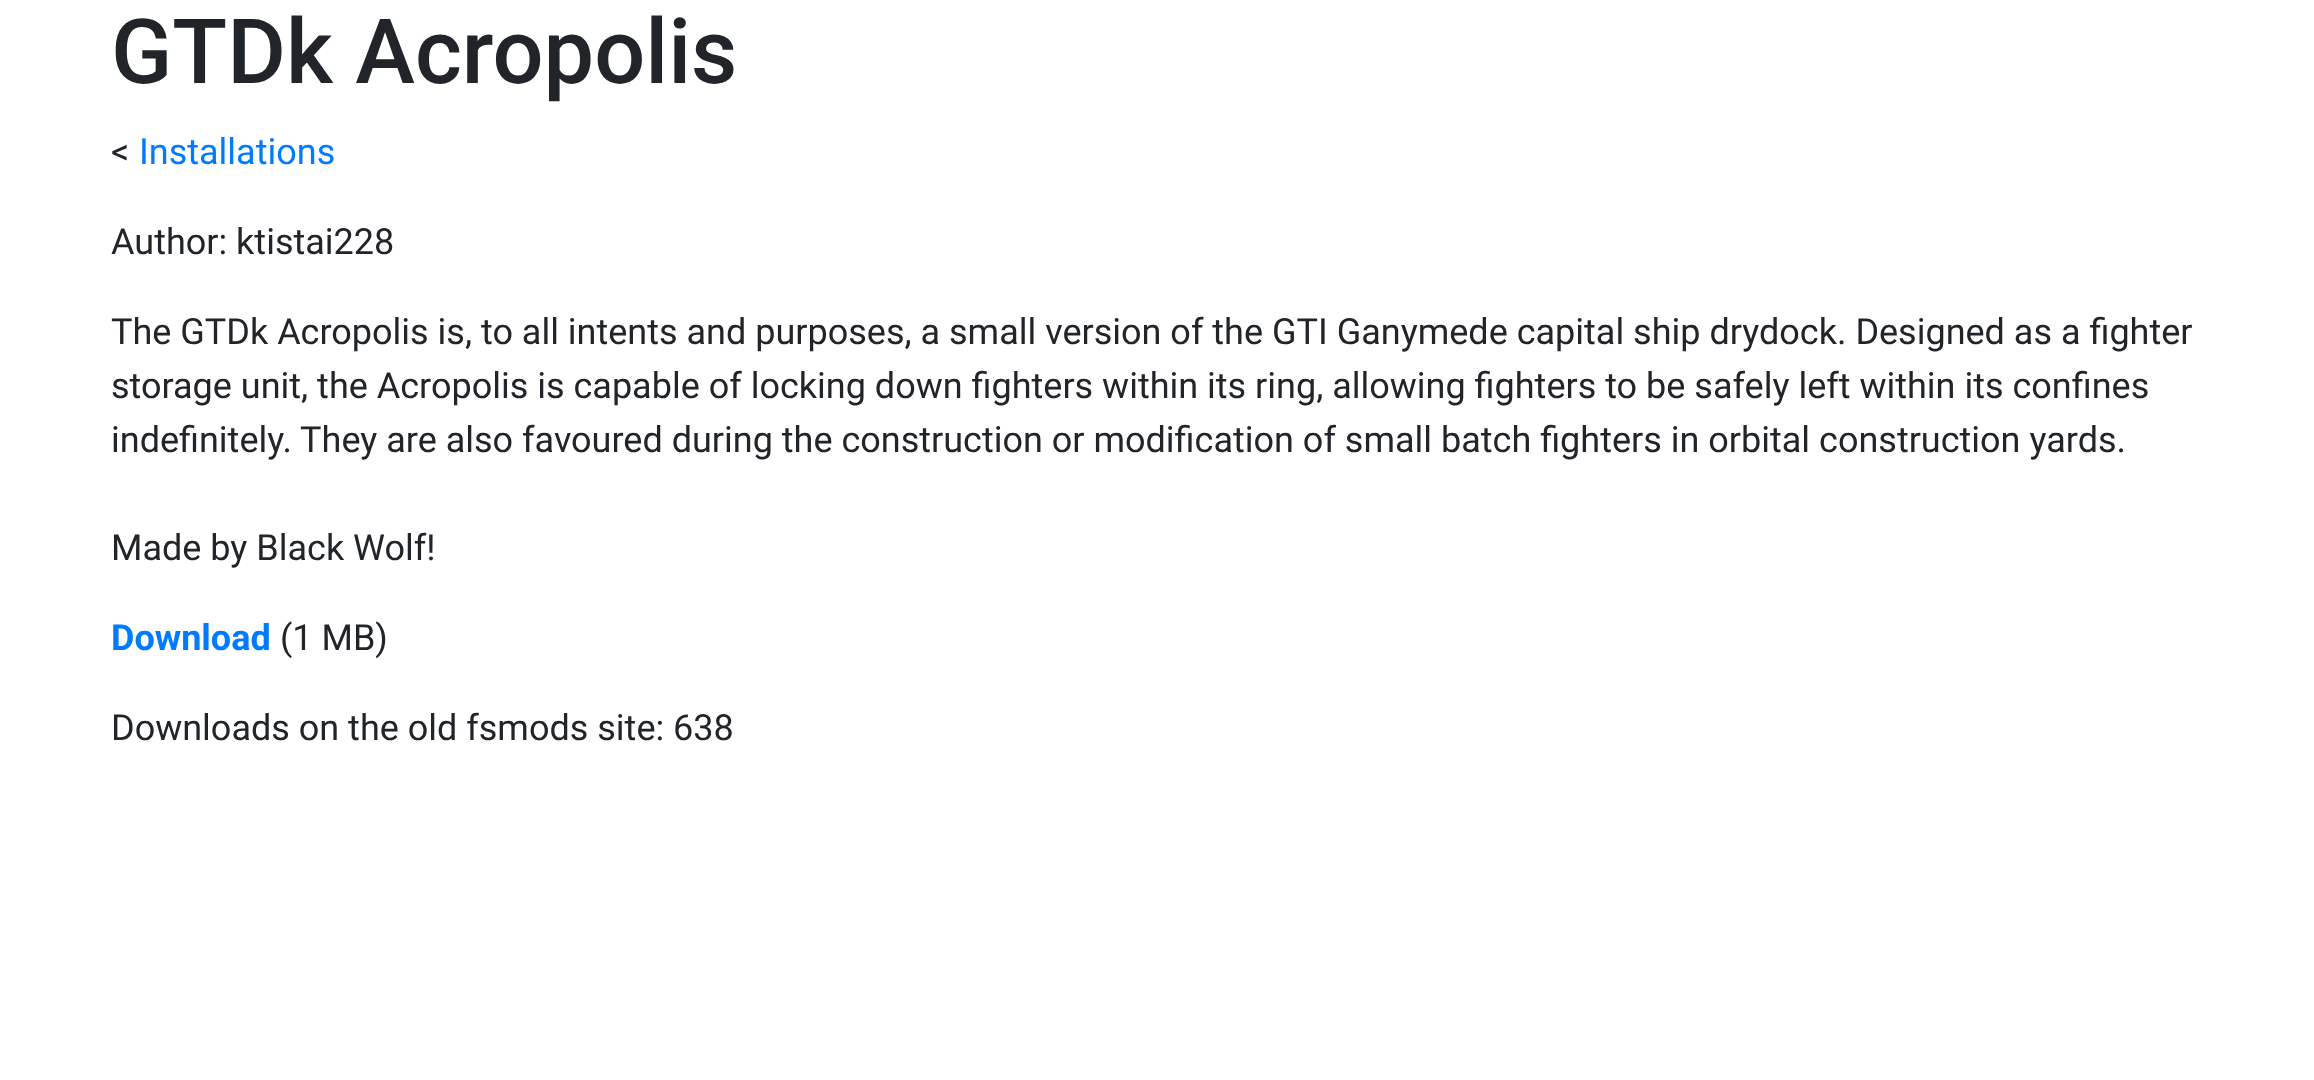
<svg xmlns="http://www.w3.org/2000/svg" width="2314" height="1080">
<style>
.a{font:500 90px Roboto;fill:#212529}
.b{font:36px Roboto;fill:#212529}
.c{font:36px Roboto;fill:#007bff}
.d{font:bold 36px Roboto;fill:#007bff}
</style>
<rect width="100%" height="100%" fill="#fff"/>
<text class="a" x="111" y="83">GTDk Acropolis</text>
<text class="b" x="111" y="164">&lt;</text>
<text class="c" x="139" y="164">Installations</text>
<text class="b" x="111" y="254">Author: ktistai228</text>
<text class="b" x="111" y="344">The GTDk Acropolis is, to all intents and purposes, a small version of the GTI Ganymede capital ship drydock. Designed as a fighter</text>
<text class="b" x="111" y="398">storage unit, the Acropolis is capable of locking down fighters within its ring, allowing fighters to be safely left within its confines</text>
<text class="b" x="111" y="452">indefinitely. They are also favoured during the construction or modification of small batch fighters in orbital construction yards.</text>
<text class="b" x="111" y="560">Made by Black Wolf!</text>
<text class="d" x="111" y="650">Download</text>
<text class="b" x="280" y="650">(1 MB)</text>
<text class="b" x="111" y="740">Downloads on the old fsmods site: 638</text>
</svg>
